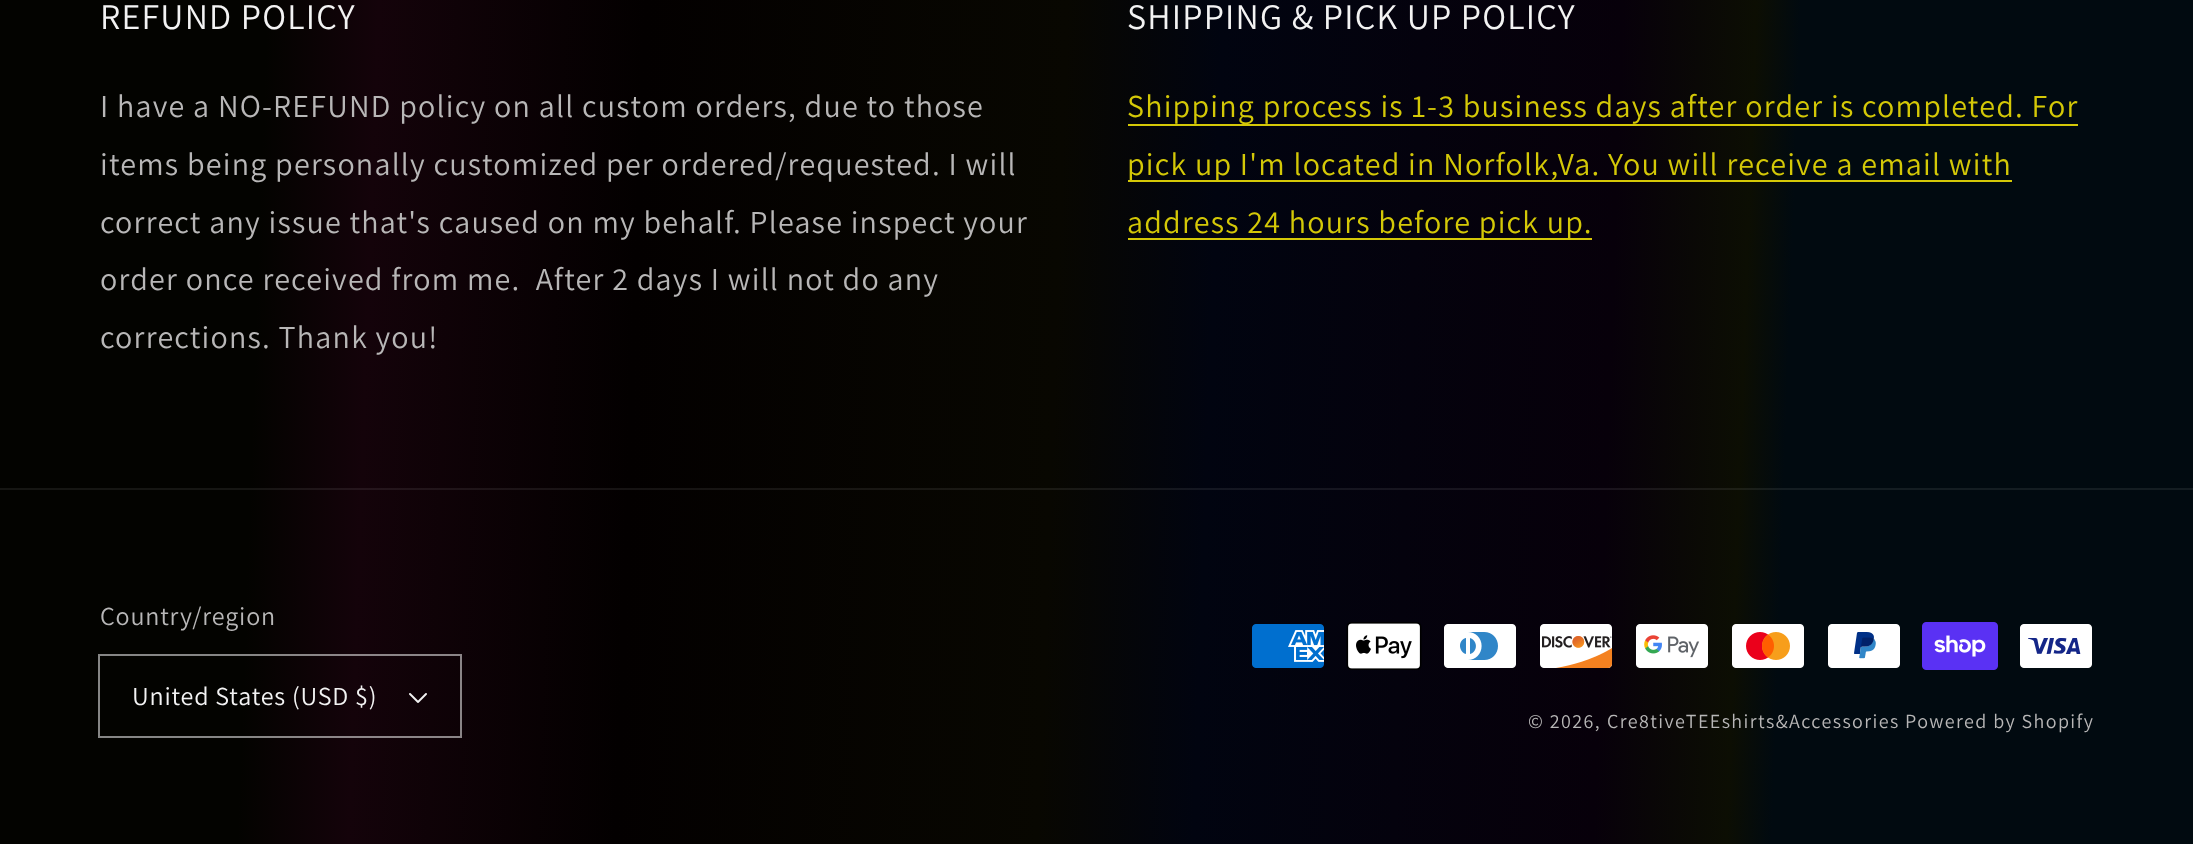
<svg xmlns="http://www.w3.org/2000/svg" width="2193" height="844">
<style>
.a{font:36px Assistant;letter-spacing:1.2px;fill:#f3f3f3}
.b{font:32px Assistant;letter-spacing:1.2px;fill:#b8b7b7}
.c{font:32px Assistant;letter-spacing:1.2px;fill:#d4c807}
.d{font:26px Assistant;letter-spacing:0.8px;fill:#b8b7b7}
.e{font:26px Assistant;letter-spacing:0.8px;fill:#f3f3f3}
.f{font:20px Assistant;letter-spacing:1.4px;fill:#b8b7b7}
</style>
<defs>
<linearGradient id="g1" gradientUnits="userSpaceOnUse" x1="-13" y1="383" x2="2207" y2="461"><stop offset="0.12" stop-color="#030300"/><stop offset="0.17" stop-color="#14030a"/><stop offset="0.29" stop-color="#030000"/><stop offset="0.48" stop-color="#080701"/><stop offset="0.55" stop-color="#010410"/><stop offset="0.73" stop-color="#07000a"/><stop offset="0.79" stop-color="#0c0e03"/><stop offset="0.81" stop-color="#010a10"/></linearGradient>
<linearGradient id="g2" gradientUnits="userSpaceOnUse" x1="-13" y1="383" x2="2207" y2="461"><stop offset="0.12" stop-color="#d4c705"/><stop offset="0.17" stop-color="#d7c707"/><stop offset="0.29" stop-color="#d4c705"/><stop offset="0.48" stop-color="#d5c805"/><stop offset="0.55" stop-color="#d4c808"/><stop offset="0.73" stop-color="#d5c707"/><stop offset="0.79" stop-color="#d5c906"/><stop offset="0.81" stop-color="#d4c808"/></linearGradient>
<linearGradient id="g3" gradientUnits="userSpaceOnUse" x1="-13" y1="383" x2="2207" y2="461"><stop offset="0.12" stop-color="#161613"/><stop offset="0.17" stop-color="#26161d"/><stop offset="0.29" stop-color="#161313"/><stop offset="0.48" stop-color="#1b1a14"/><stop offset="0.55" stop-color="#141722"/><stop offset="0.73" stop-color="#1a131d"/><stop offset="0.79" stop-color="#1e2016"/><stop offset="0.81" stop-color="#141d22"/></linearGradient>
</defs>
<rect width="100%" height="100%" fill="#fff"/>
<path fill="url(#g1)" d="M0 0h2193v844H0z"/>
<path fill="url(#g2)" d="M1128 238h464v2H1128z"/>
<path fill="url(#g2)" d="M1128 180h884v2H1128z"/>
<path fill="url(#g2)" d="M1128 124h950v2H1128z"/>
<path fill="url(#g3)" d="M0 488h2193v2H0z"/>
<path fill="none" stroke="#f3f3f38c" stroke-width="2" d="M99 655h362v82H99z"/>
<image href="1.png" x="409" y="693" width="18" height="10"/>
<image href="2.png" x="1252" y="624" width="72" height="44"/>
<image href="3.png" x="1346" y="622" width="76" height="48"/>
<image href="4.png" x="1444" y="624" width="72" height="44"/>
<image href="5.png" x="1540" y="624" width="73" height="44"/>
<image href="6.png" x="1636" y="624" width="72" height="44"/>
<image href="7.png" x="1732" y="624" width="72" height="44"/>
<image href="8.png" x="1828" y="624" width="72" height="44"/>
<image href="9.png" x="1922" y="622" width="76" height="48"/>
<image href="10.png" x="2020" y="624" width="72" height="44"/>
<text class="a" x="100" y="29">REFUND POLICY</text>
<text class="b" x="100" y="117">I have a NO-REFUND policy on all custom orders, due to those</text>
<text class="b" x="100" y="175">items being personally customized per ordered/requested. I will</text>
<text class="b" x="100" y="233">correct any issue that's caused on my behalf. Please inspect your</text>
<text class="b" xml:space="preserve" x="100" y="290">order once received from me.  After 2 days I will not do any</text>
<text class="b" x="100" y="348">corrections. Thank you!</text>
<text class="a" x="1127" y="29">SHIPPING &amp; PICK UP POLICY</text>
<text class="c" x="1127" y="117">Shipping process is 1-3 business days after order is completed. For</text>
<text class="c" x="1127" y="175">pick up I'm located in Norfolk,Va. You will receive a email with</text>
<text class="c" x="1127" y="233">address 24 hours before pick up.</text>
<text class="d" x="100" y="625">Country/region</text>
<text class="e" x="132" y="705">United States (USD $)</text>
<text class="f" x="1528" y="728">© 2026,</text>
<text class="f" x="1607" y="728">Cre8tiveTEEshirts&amp;Accessories</text>
<text class="f" x="1905" y="728">Powered by Shopify</text>
</svg>
